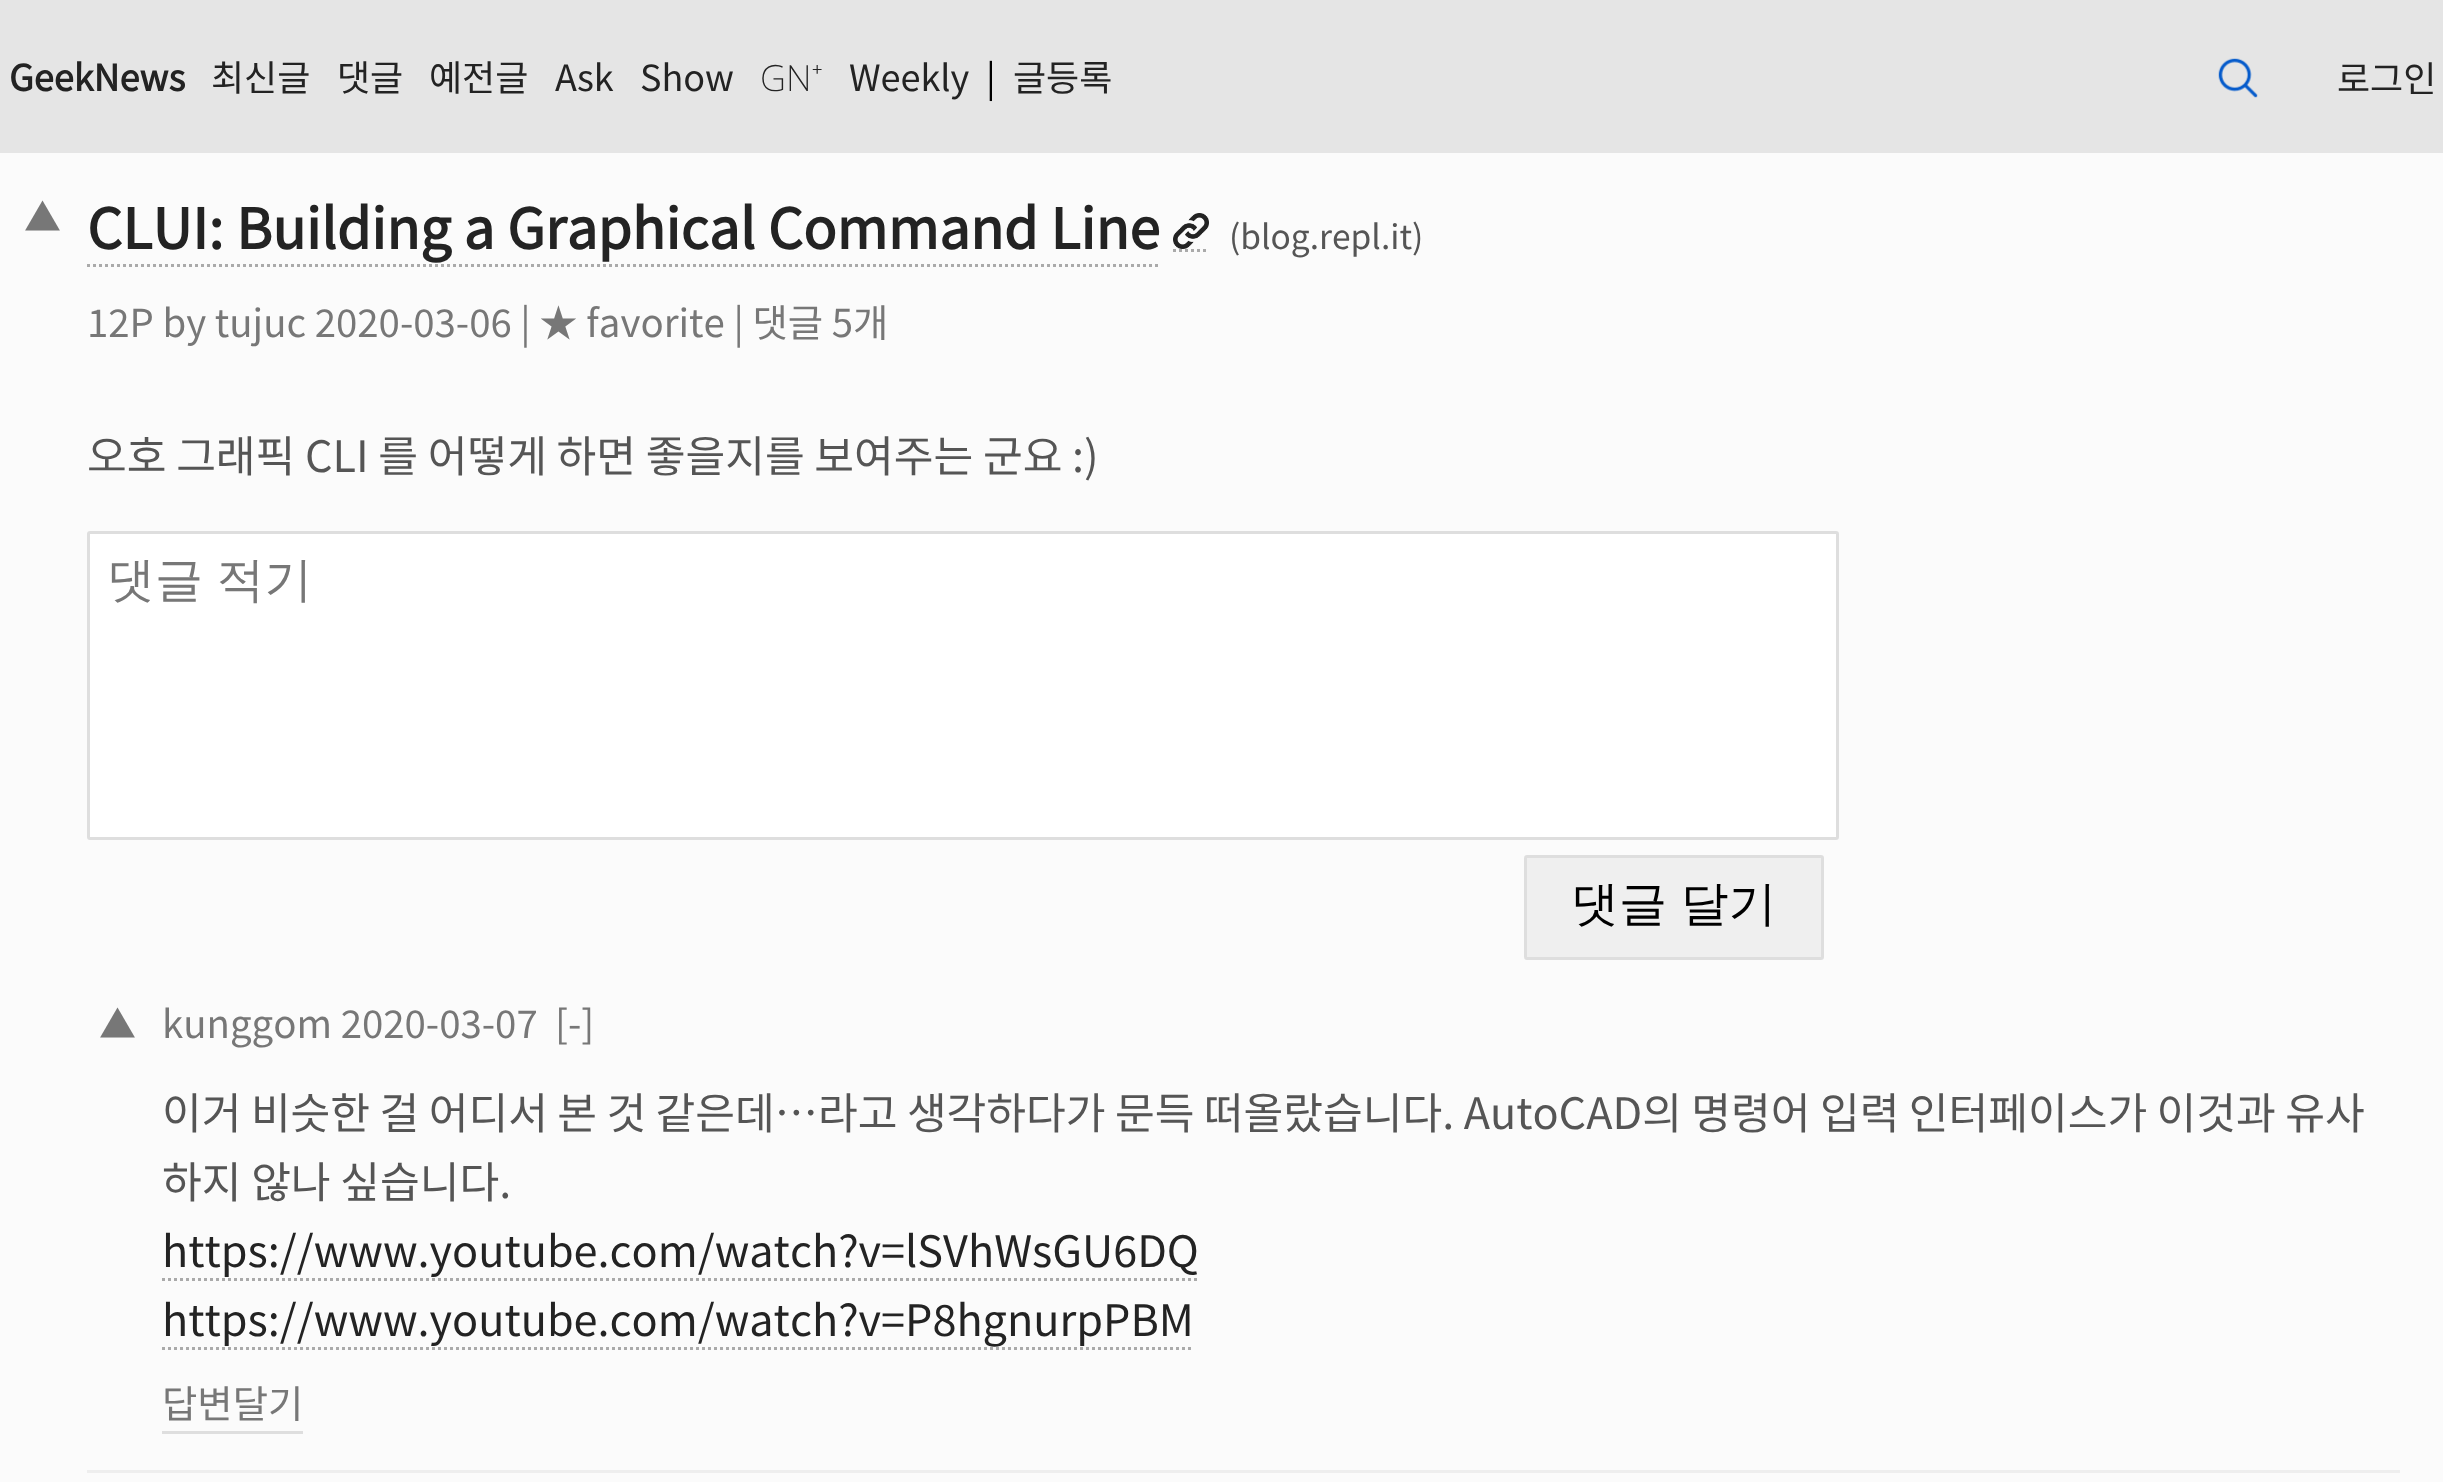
<svg xmlns="http://www.w3.org/2000/svg" width="2443" height="1482">
<style>*{font-kerning:none!important;font-variant-ligatures:none!important}</style>
<style>
.a{font:bold 36px Noto Sans KR;fill:#232323}
.b{font:100 36px Noto Sans KR;fill:#232323}
.c{font:200 36px Noto Sans;fill:#232323}
.d{font:100 36px Noto Sans KR;fill:#000}
.e{font:100 37px Noto Sans KR;fill:#777}
.f{font:bold 55.25px Noto Sans KR;fill:#232323}
.g{font:100 33.5px Noto Sans KR;fill:#555}
.h{font:100 38.4px Noto Sans KR;fill:#777}
.i{font:100 43.2px Noto Sans KR;fill:#555}
.j{font:500 48px WenQuanYi Zen Hei;fill:#777}
.k{font:500 48px WenQuanYi Zen Hei;fill:#000}
.l{font:100 43.2px Noto Sans KR;fill:#232323}
</style>
<rect width="100%" height="100%" fill="#fbfbfb"/>
<path fill="#e5e5e5" d="M0 0h2443v153H0z"/>
<image href="1.png" x="2218" y="58" width="40" height="40"/>
<path fill="none" stroke="#aaa" stroke-width="3" stroke-dasharray="3 3" d="M87 265.5h1071"/>
<path fill="none" stroke="#aaa" stroke-width="3" stroke-dasharray="3 3" d="M1173 250.5h36"/>
<image href="2.png" x="1173" y="213" width="36" height="36"/>
<rect fill="#fff" stroke="#dedede" stroke-width="3" x="88.5" y="532.5" width="1749" height="306" rx="1.5"/>
<rect fill="#efefef" stroke="#dedede" stroke-width="3" x="1525.5" y="856.5" width="297" height="102" rx="1.5"/>
<path fill="#eee" d="M87 1470h2313v3H87z"/>
<path fill="none" stroke="#aaa" stroke-width="3" stroke-dasharray="3 3" d="M162 1279.5h1038"/>
<path fill="none" stroke="#aaa" stroke-width="3" stroke-dasharray="3 3" d="M162 1348.5h1032"/>
<path fill="#dedede" d="M162 1431h141v3H162z"/>
<text class="a" x="9" y="91">GeekNews</text>
<text class="b" x="211" y="91">최신글</text>
<text class="b" x="337" y="91">댓글</text>
<text class="b" x="429" y="91">예전글</text>
<text class="b" x="555" y="91">Ask</text>
<text class="b" x="640" y="91">Show</text>
<text class="c" x="760" y="91">GN⁺</text>
<text class="b" x="849" y="91">Weekly</text>
<text class="d" x="986" y="91">|</text>
<text class="b" x="1013" y="91">글등록</text>
<text class="b" x="2337" y="92">로그인</text>
<text class="e" x="24" y="231">▲</text>
<text class="f" x="87" y="249">CLUI: Building a Graphical Command Line</text>
<text class="g" x="1229" y="249">(blog.repl.it)</text>
<text class="h" x="87" y="337">12P by tujuc 2020-03-06 | ★ favorite | 댓글 5개</text>
<text class="i" x="87" y="472">오호 그래픽 CLI 를 어떻게 하면 좋을지를 보여주는 군요 :)</text>
<text class="j" x="107" y="596" word-spacing="-1">댓글 적기</text>
<text class="k" x="1571" y="920" word-spacing="-1">댓글 달기</text>
<text class="e" x="99" y="1038">▲</text>
<text class="h" x="162" y="1038">kunggom 2020-03-07</text>
<text class="h" x="555" y="1038">[-]</text>
<text class="i" x="162" y="1129" word-spacing="-0.25">이거 비슷한 걸 어디서 본 것 같은데…라고 생각하다가 문득 떠올랐습니다. AutoCAD의 명령어 입력 인터페이스가 이것과 유사</text>
<text class="i" x="162" y="1198">하지 않나 싶습니다.</text>
<text class="l" x="162" y="1267">https://www.youtube.com/watch?v=lSVhWsGU6DQ</text>
<text class="l" x="162" y="1336">https://www.youtube.com/watch?v=P8hgnurpPBM</text>
<text class="h" x="162" y="1418">답변달기</text>
</svg>
